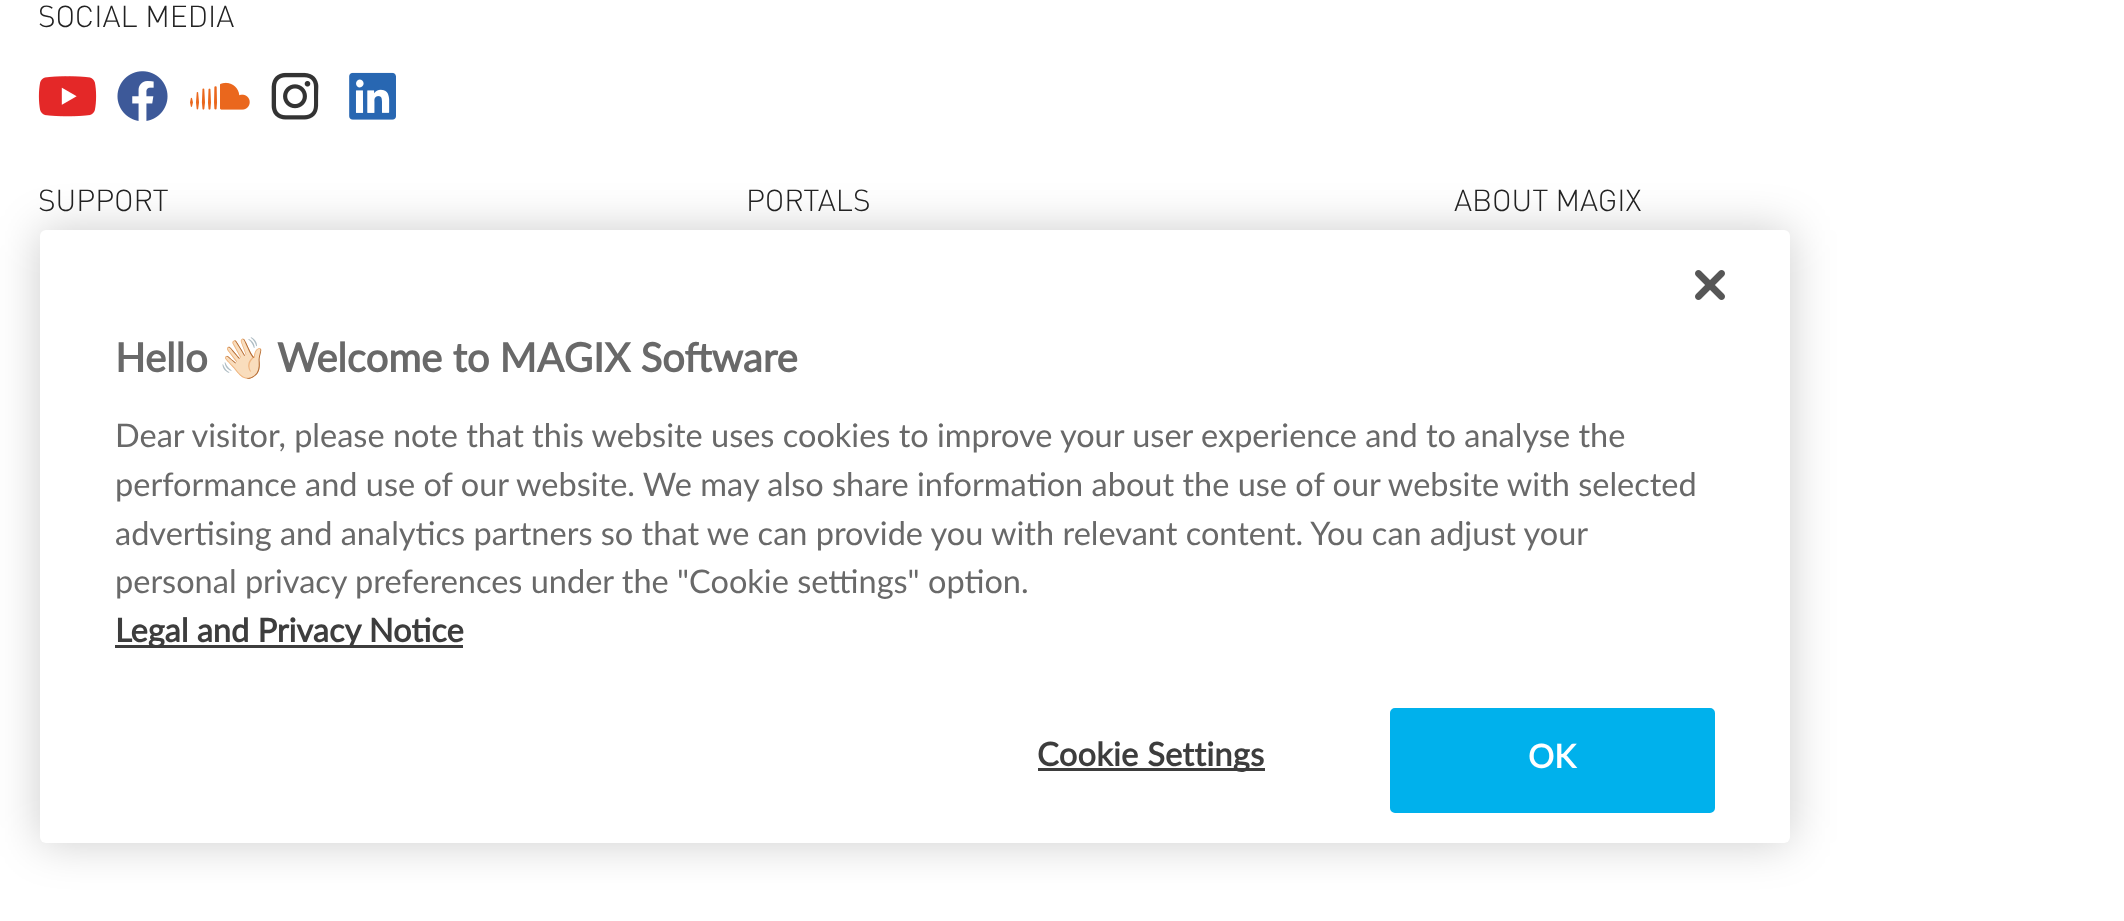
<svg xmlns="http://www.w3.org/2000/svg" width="2124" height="921">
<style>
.a{font:300 30px DIN;fill:#222}
.b{font:bold 40px Lato;fill:#696969}
.c{font:bold 40px Noto Color Emoji;fill:#696969}
.d{font:32.5px Lato;fill:#696969}
.e{font:bold 32.5px Lato;fill:#3d3d3d}
.f{font:bold 32.5px Lato;letter-spacing:0.3px;fill:#3d3d3d}
.g{font:bold 32.5px Lato;letter-spacing:0.3px;fill:#fff}
</style>
<rect width="100%" height="100%" fill="#fff"/>
<image href="1.png" x="38" y="76" width="59" height="41"/>
<image href="2.png" x="117" y="71" width="51" height="50"/>
<image href="3.png" x="190" y="82" width="60" height="28"/>
<image href="4.png" x="271" y="72" width="48" height="48"/>
<image href="5.png" x="349" y="72" width="47" height="48"/>
<rect fill="#00000033" filter="blur(22.5px)" x="40" y="230" width="1750" height="613" rx="6"/>
<rect fill="#fff" x="40" y="230" width="1750" height="613" rx="6"/>
<image href="6.png" x="1695" y="270" width="30" height="30"/>
<path fill="#3d3d3d" d="M115 645h348v3H115z"/>
<path fill="#3d3d3d" d="M1038 768h227v3H1038z"/>
<rect fill="#00b1ec" stroke="#00b1ec" stroke-width="3" x="1391.5" y="709.5" width="322" height="102" rx="3.5"/>
<text class="a" x="38" y="27">SOCIAL MEDIA</text>
<text class="a" x="38" y="211">SUPPORT</text>
<text class="a" x="746" y="211">PORTALS</text>
<text class="a" x="1454" y="211">ABOUT MAGIX</text>
<text class="b" x="115" y="372">Hello</text>
<text class="c" x="218" y="372">👋🏻</text>
<text class="b" x="277" y="372">Welcome to MAGIX Software</text>
<text class="d" x="115" y="447">Dear visitor, please note that this website uses cookies to improve your user experience and to analyse the</text>
<text class="d" x="115" y="496">performance and use of our website. We may also share information about the use of our website with selected</text>
<text class="d" x="115" y="545">advertising and analytics partners so that we can provide you with relevant content. You can adjust your</text>
<text class="d" x="115" y="593">personal privacy preferences under the "Cookie settings" option.</text>
<text class="e" x="115" y="642">Legal and Privacy Notice</text>
<text class="f" x="1037" y="766">Cookie Settings</text>
<text class="g" x="1528" y="768">OK</text>
</svg>
